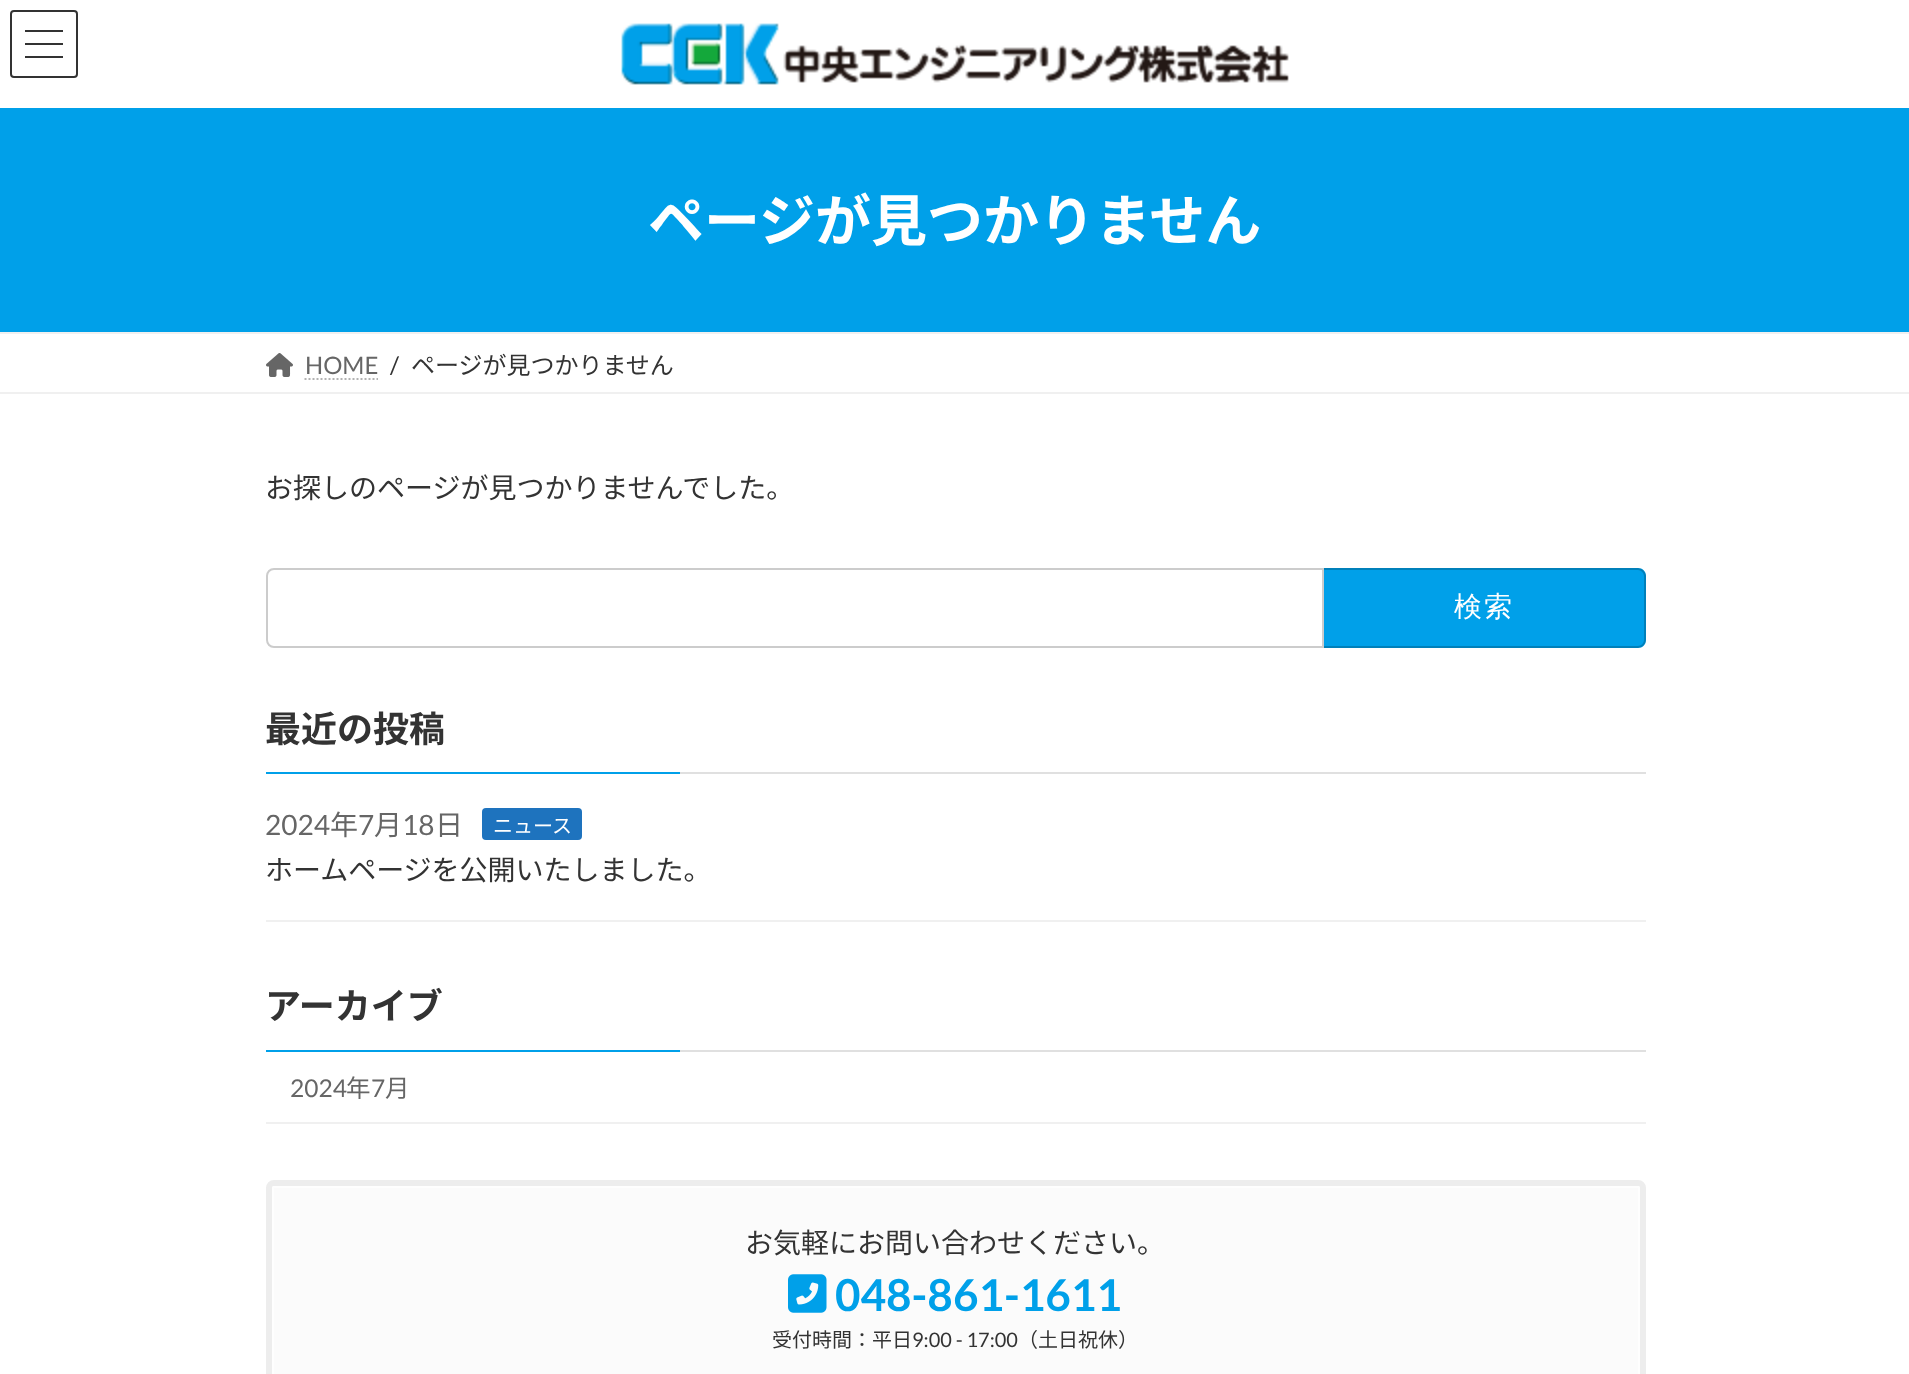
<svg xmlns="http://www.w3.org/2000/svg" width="1909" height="1374">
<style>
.a{font:bold 56px Noto Sans JP;fill:#fff}
.b{font:24px Lato;fill:#666}
.c{font:24px Lato;fill:#333}
.d{font:24px Noto Sans JP;fill:#333}
.e{font:28px Noto Sans JP;fill:#333}
.f{font:500 28px WenQuanYi Zen Hei;letter-spacing:2px;fill:#fff}
.g{font:bold 36px Noto Sans JP;fill:#333}
.h{font:28px Lato;fill:#666}
.i{font:28px Noto Sans JP;fill:#666}
.j{font:20px Noto Sans JP;fill:#fff}
.k{font:24.5px Lato;fill:#666}
.l{font:24.5px Noto Sans JP;fill:#666}
.m{font:bold 44px Lato;fill:#00a0e9}
.n{font:20px Noto Sans JP;fill:#333}
.o{font:20px Lato;fill:#333}
</style>
<rect width="100%" height="100%" fill="#fff"/>
<path fill="#333" d="M25 30h38v2H25z"/>
<path fill="#333" d="M25 43h38v2H25z"/>
<path fill="#333" d="M25 56h38v2H25z"/>
<rect fill="none" stroke="#333" stroke-width="2" x="11" y="11" width="66" height="66" rx="3"/>
<image href="1.png" x="621" y="23" width="668" height="62"/>
<path fill="#00a0e9" d="M0 108h1909v224H0z"/>
<path fill="#f0f0f0" d="M0 332h1909v2H0z"/>
<path fill="#f0f0f0" d="M0 392h1909v2H0z"/>
<image href="2.png" x="266" y="353" width="27" height="24"/>
<path fill="none" stroke="#b3b3b3" stroke-width="2" stroke-dasharray="2 2" d="M304.5 379h73.5"/>
<path fill="none" stroke="#ccc" stroke-width="2" d="M274 569h1049v78h-1049c-4 0-7-3-7-7v-64c0-4 3-7 7-7z"/>
<path fill="#00a0e9" d="M1324 568h314c4.5 0 8 3.5 8 8v64c0 4.5-3.5 8-8 8h-314z"/>
<path fill="#00000033" fill-rule="evenodd" d="M1324 568h314c4 0 8 4 8 8v64c0 4-4 8-8 8h-314zm0 2h314c3 0 6 3 6 6v64c0 3-3 6-6 6h-314z"/>
<path fill="#e0e0e0" d="M680 772h966v2H680z"/>
<path fill="#00a0e9" d="M266 772h414v2H266z"/>
<path fill="#f0f0f0" d="M266 920h1380v2H266z"/>
<rect fill="#1e73be" x="482" y="808" width="100" height="32" rx="4"/>
<path fill="#e0e0e0" d="M680 1050h966v2H680z"/>
<path fill="#00a0e9" d="M266 1050h414v2H266z"/>
<path fill="#f0f0f0" d="M266 1122h1380v2H266z"/>
<rect fill="none" stroke="#ededed" stroke-width="6" x="269" y="1183" width="1374" height="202" rx="5"/>
<rect fill="#fbfbfb" x="272" y="1186" width="1368" height="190" rx="2"/>
<path fill="#fefefe" fill-rule="evenodd" d="M274 1186c-1 0-2 1-2 2v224c0 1 1 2 2 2h1364c1 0 2-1 2-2v-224c0-1-1-2-2-2zm0 2v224h1364v-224z"/>
<image href="3.png" x="788" y="1274" width="39" height="39"/>
<text class="a" x="648" y="241">ページが見つかりません</text>
<text class="b" x="305" y="374">HOME</text>
<text class="c" x="390" y="374">/</text>
<text class="d" x="411" y="374">ページが見つかりません</text>
<text class="e" x="265" y="498">お探しのページが見つかりませんでした。</text>
<text class="f" x="1454" y="616">検索</text>
<text class="g" x="265" y="742">最近の投稿</text>
<text class="h" x="265" y="835">2024</text>
<text class="i" x="330" y="835">年</text>
<text class="h" x="358" y="835">7</text>
<text class="i" x="374" y="835">月</text>
<text class="h" x="402" y="835">18</text>
<text class="i" x="435" y="835">日</text>
<text class="j" x="493" y="833">ニュース</text>
<text class="e" x="265" y="880">ホームページを公開いたしました。</text>
<text class="g" x="265" y="1019">アーカイブ</text>
<text class="k" x="290" y="1097">2024</text>
<text class="l" x="346" y="1097">年</text>
<text class="k" x="371" y="1097">7</text>
<text class="l" x="385" y="1097">月</text>
<text class="e" x="745" y="1253">お気軽にお問い合わせください。</text>
<text class="m" x="835" y="1311">048-861-1611</text>
<text class="n" x="772" y="1347">受付時間：平日</text>
<text class="o" x="912" y="1347">9:00 - 17:00</text>
<text class="n" x="1018" y="1347">（土日祝休）</text>
</svg>
